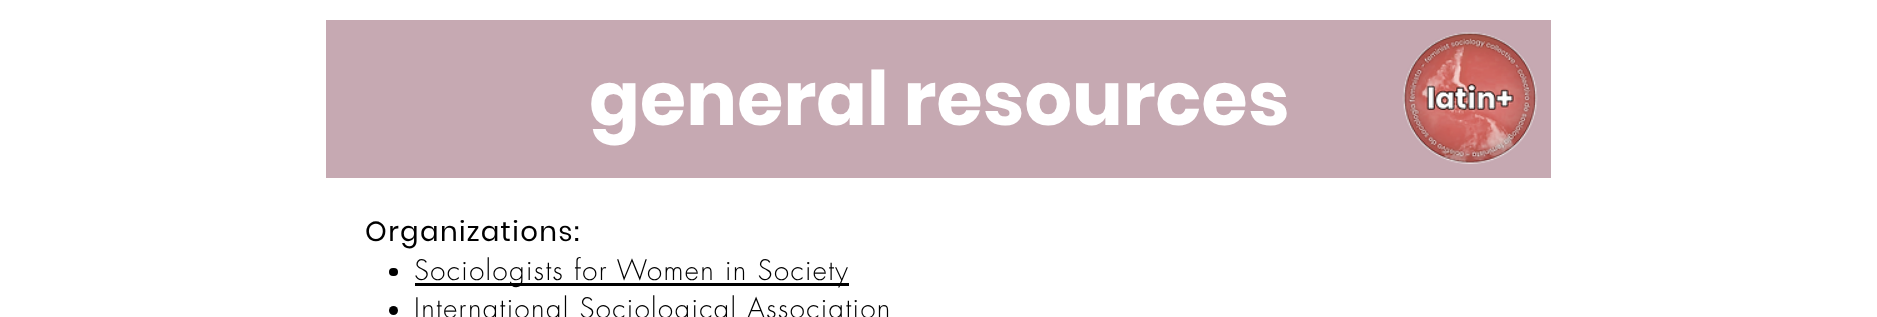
<svg xmlns="http://www.w3.org/2000/svg" width="1877" height="317">
<style>
.a{font:bold 75px Poppins;fill:#fff}
.b{font:27.5px Poppins;letter-spacing:1.4px;fill:#000}
.c{font:300 27.5px futura;letter-spacing:1.4px;fill:#000}
</style>
<rect width="100%" height="100%" fill="#fff"/>
<path fill="#c6a9b2" d="M326 20h1225v158H326z"/>
<image href="1.png" x="1402" y="32" width="136" height="132"/>
<rect fill="#000" x="389" y="268" width="9" height="8" rx="4"/>
<path fill="#000" d="M415 283h434v3H415z"/>
<circle fill="#000" cx="393.5" cy="310.5" r="4.5"/>
<text class="a" x="589" y="125">general resources</text>
<text class="b" x="365" y="241">Organizations:</text>
<text class="c" x="414" y="280">Sociologists for Women in Society</text>
<text class="c" x="414" y="318">International Sociological Association</text>
</svg>
